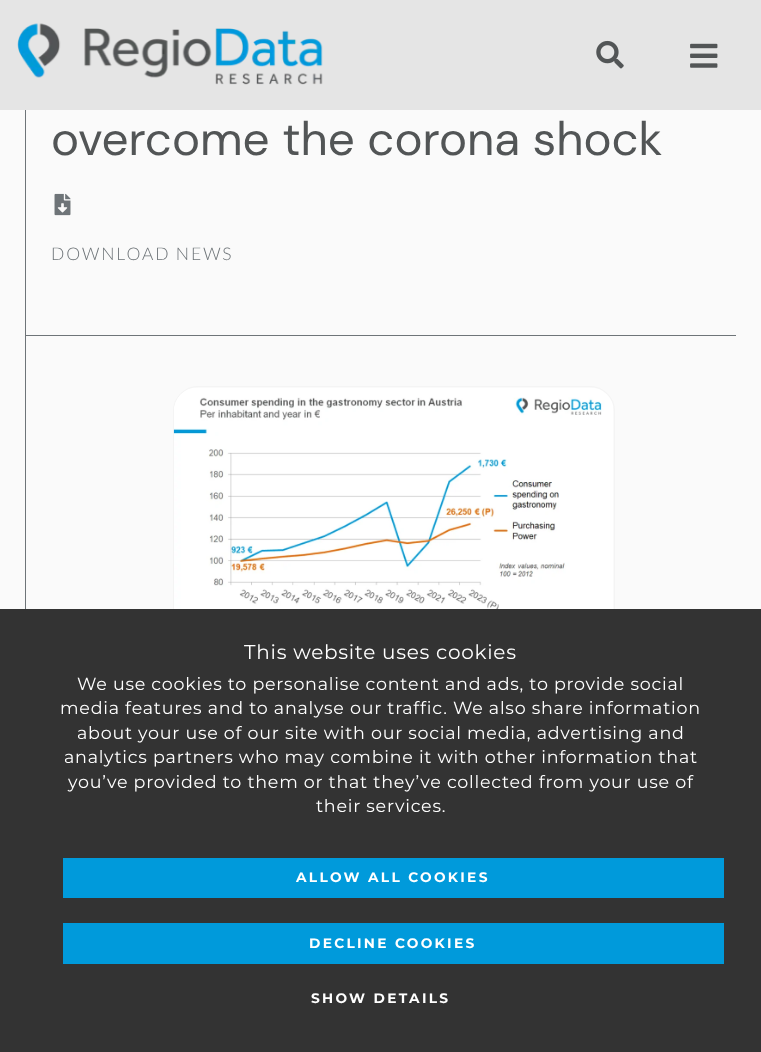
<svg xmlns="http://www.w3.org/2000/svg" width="761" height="1052">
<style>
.a{font:47.5px DM Sans;fill:#525556}
.b{font:300 17.5px Lato;letter-spacing:1.9px;fill:#6e7478}
.c{font:20px Montserrat;letter-spacing:0.75px;fill:#fff}
.d{font:17.5px Montserrat;letter-spacing:0.75px;fill:#fff}
.e{font:bold 13.75px Montserrat;letter-spacing:2.3px;fill:#fff}
</style>
<rect width="100%" height="100%" fill="#fafafa"/>
<path fill="#e5e5e5" d="M0 0h761v110H0z"/>
<image href="1.png" x="17" y="23" width="306" height="62"/>
<image href="2.png" x="596" y="40" width="28" height="29"/>
<image href="3.png" x="690" y="43" width="28" height="25"/>
<path fill="#6e7478" d="M25 110h1v499H25z"/>
<image href="4.png" x="54" y="193" width="17" height="23"/>
<path fill="#6e7478" d="M26 335h710v1H26z"/>
<rect fill="none" stroke="#f4f4f4" x="173.5" y="386.5" width="441" height="249" rx="24.5"/>
<image href="5.png" x="173" y="388" width="440" height="221"/>
<path fill="#333" d="M0 609h761v443H0z"/>
<path fill="#009adb" d="M63 858h661v40H63z"/>
<path fill="#009adb" d="M63 923h661v41H63z"/>
<text class="a" x="51" y="155">overcome the corona shock</text>
<text class="b" x="51" y="260">DOWNLOAD NEWS</text>
<text class="c" x="244" y="659">This website uses cookies</text>
<text class="d" x="77" y="690">We use cookies to personalise content and ads, to provide social</text>
<text class="d" x="60" y="714">media features and to analyse our traffic. We also share information</text>
<text class="d" x="77" y="739">about your use of our site with our social media, advertising and</text>
<text class="d" x="64" y="763">analytics partners who may combine it with other information that</text>
<text class="d" x="68" y="788">you’ve provided to them or that they’ve collected from your use of</text>
<text class="d" x="316" y="812">their services.</text>
<text class="e" x="296" y="882">ALLOW ALL COOKIES</text>
<text class="e" x="309" y="948">DECLINE COOKIES</text>
<text class="e" x="311" y="1003">SHOW DETAILS</text>
</svg>
